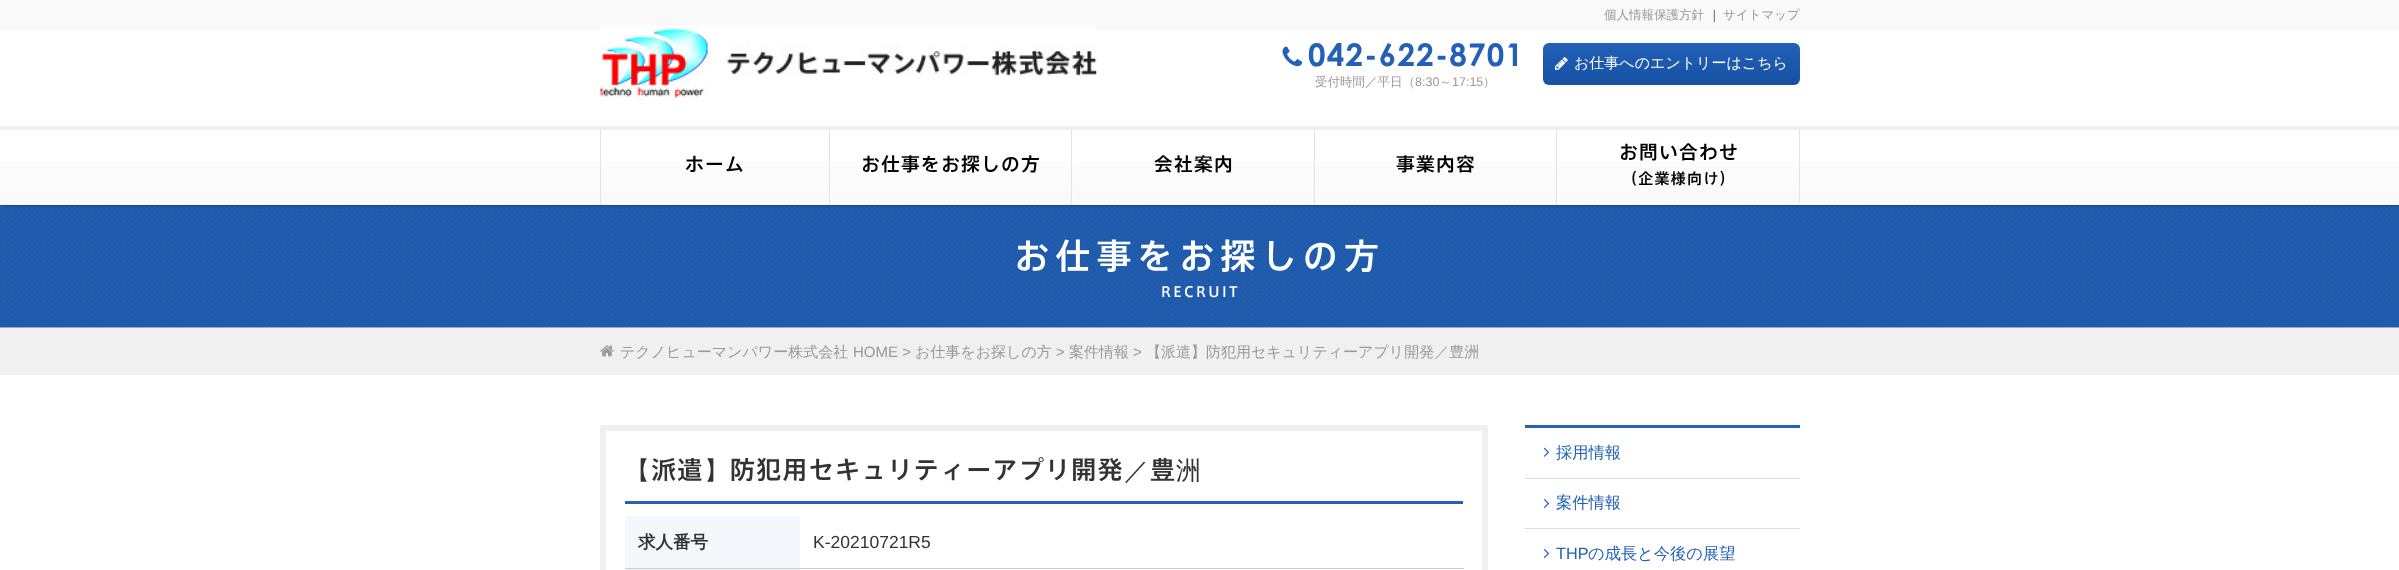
<svg xmlns="http://www.w3.org/2000/svg" width="2399" height="570">
<style>
.a{font:500 12.5px WenQuanYi Zen Hei;fill:#999}
.b{font:500 12.5px WenQuanYi Zen Hei;fill:#333}
.c{font:bold 31.25px Century Gothic;letter-spacing:1.25px;fill:#2261b7}
.d{font:12.5px Liberation Sans;fill:#999}
.e{font:500 15px WenQuanYi Zen Hei;fill:#fff}
.f{font:500 18.75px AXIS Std;letter-spacing:1.25px;fill:#000}
.g{font:500 15px AXIS Std;letter-spacing:1.25px;fill:#000}
.h{font:500 35px AXIS Std;letter-spacing:6.25px;fill:#fff}
.i{font:500 14px AXIS Std;letter-spacing:2.5px;fill:#fff}
.j{font:500 15px WenQuanYi Zen Hei;fill:#999}
.k{font:15px Liberation Sans;fill:#999}
.l{font:500 25px WenQuanYi Zen Hei;letter-spacing:1.25px;fill:#333}
.m{font:500 25px AXIS Std;letter-spacing:1.25px;fill:#333}
.n{font:bold 17.5px WenQuanYi Zen Hei;fill:#333}
.o{font:17.5px Liberation Sans;fill:#333}
.p{font:500 16.25px WenQuanYi Zen Hei;fill:#2261b7}
.q{font:16.25px Liberation Sans;fill:#2261b7}
</style>
<defs>
<clipPath id="clip1"><path d="M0 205h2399v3H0z"/></clipPath>
<linearGradient id="g1" gradientUnits="userSpaceOnUse" x1="1671" y1="42" x2="1671" y2="85"><stop offset="0" stop-color="#2261b7"/><stop offset="1" stop-color="#1651a3"/></linearGradient>
<linearGradient id="g2" gradientUnits="userSpaceOnUse" x1="1200" y1="130" x2="1200" y2="205"><stop offset="0" stop-color="#fff"/><stop offset="1" stop-color="#f9f9f9"/></linearGradient>
</defs>
<rect width="100%" height="100%" fill="#fff"/>
<image href="4.png" x="0" y="205" width="2399" height="123"/>
<g clip-path="url(#clip1)">
<path fill="#00000080" filter="blur(2.5px)" d="M1 1h2398v203H1z"/>
</g>
<path fill="#f9f9f9" d="M0 0h2399v30H0z"/>
<image href="1.png" x="600" y="25" width="497" height="76"/>
<image href="2.png" x="1282" y="46" width="21" height="21"/>
<rect fill="url(#g1)" x="1543" y="43" width="257" height="42" rx="6"/>
<image href="3.png" x="1555" y="57" width="13" height="13"/>
<path fill="url(#g2)" d="M0 161h2399v44H0z"/>
<path fill="#f0f0f0" d="M0 126h2399v4H0z"/>
<path fill="#e3e3e3" d="M829 130h1v75H829z"/>
<path fill="#e3e3e3" d="M600 130h1v75H600z"/>
<path fill="#e3e3e3" d="M1071 130h1v75H1071z"/>
<path fill="#fff" d="M830 161h1v44H830z"/>
<path fill="#e3e3e3" d="M1314 130h1v75H1314z"/>
<path fill="#fff" d="M1073 161h1v44H1073z"/>
<path fill="#e3e3e3" d="M1556 130h1v75H1556z"/>
<path fill="#fff" d="M1315 161h1v44H1315z"/>
<path fill="#e3e3e3" d="M1799 130h1v73H1799z"/>
<path fill="#fff" d="M1558 161h1v42H1558z"/>
<path fill="#f0f0f0" d="M0 328h2399v47H0z"/>
<image href="5.png" x="600" y="345" width="14" height="12"/>
<path fill="none" stroke="#f0f0f0" stroke-width="6" d="M603 428h882v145H603z"/>
<path fill="#2261b7" d="M625 501h838v3H625z"/>
<path fill="#f4f8fd" d="M625 516h175v52H625z"/>
<path fill="#ccc" d="M625 568h839v1H625z"/>
<path fill="#f4f8fd" d="M625 569h175v1H625z"/>
<path fill="#2261b7" d="M1525 425h275v3H1525z"/>
<image href="6.png" x="1543" y="447" width="7" height="10"/>
<path fill="#ddd" d="M1525 478h275v1H1525z"/>
<image href="7.png" x="1543" y="499" width="7" height="9"/>
<path fill="#ddd" d="M1525 528h275v1H1525z"/>
<image href="7.png" x="1543" y="549" width="7" height="9"/>
<text class="a" x="1604" y="19">個人情報保護方針</text>
<text class="b" x="1708" y="19">｜</text>
<text class="a" x="1723" y="19">サイトマップ</text>
<text class="c" x="1308" y="66">042-622-8701</text>
<text class="a" x="1315" y="86">受付時間／平日（</text>
<text class="d" x="1415" y="86">8:30</text>
<text class="a" x="1439" y="86">～</text>
<text class="d" x="1452" y="86">17:15</text>
<text class="a" x="1483" y="86">）</text>
<text class="e" x="1574" y="68">お仕事へのエントリーはこちら</text>
<text class="f" x="685" y="171">ホーム</text>
<text class="f" x="861" y="171">お仕事をお探しの方</text>
<text class="f" x="1154" y="171">会社案内</text>
<text class="f" x="1396" y="171">事業内容</text>
<text class="f" x="1619" y="159">お問い合わせ</text>
<text class="g" x="1622" y="184">（企業様向け）</text>
<text class="h" x="1014" y="269">お仕事をお探しの方</text>
<text class="i" x="1161" y="297">RECRUIT</text>
<text class="j" x="620" y="357">テクノヒューマンパワー株式会社</text>
<text class="k" x="853" y="357">HOME &gt;</text>
<text class="j" x="915" y="357">お仕事をお探しの方</text>
<text class="k" x="1056" y="357">&gt;</text>
<text class="j" x="1069" y="357">案件情報</text>
<text class="k" x="1133" y="357">&gt;</text>
<text class="j" x="1146" y="357">【派遣】防犯用セキュリティーアプリ開発／豊洲</text>
<text class="l" x="625" y="479">【</text>
<text class="m" x="651" y="479">派遣</text>
<text class="l" x="704" y="479">】</text>
<text class="m" x="730" y="479">防犯用セキュリティーアプリ開発</text>
<text class="l" x="1124" y="479">／</text>
<text class="m" x="1150" y="479">豊</text>
<text class="l" x="1176" y="479">洲</text>
<text class="n" x="638" y="548">求人番号</text>
<text class="o" x="813" y="548">K-20210721R5</text>
<text class="p" x="1556" y="458">採用情報</text>
<text class="p" x="1556" y="508">案件情報</text>
<text class="q" x="1556" y="559">THP</text>
<text class="p" x="1588" y="559">の成長と今後の展望</text>
</svg>
